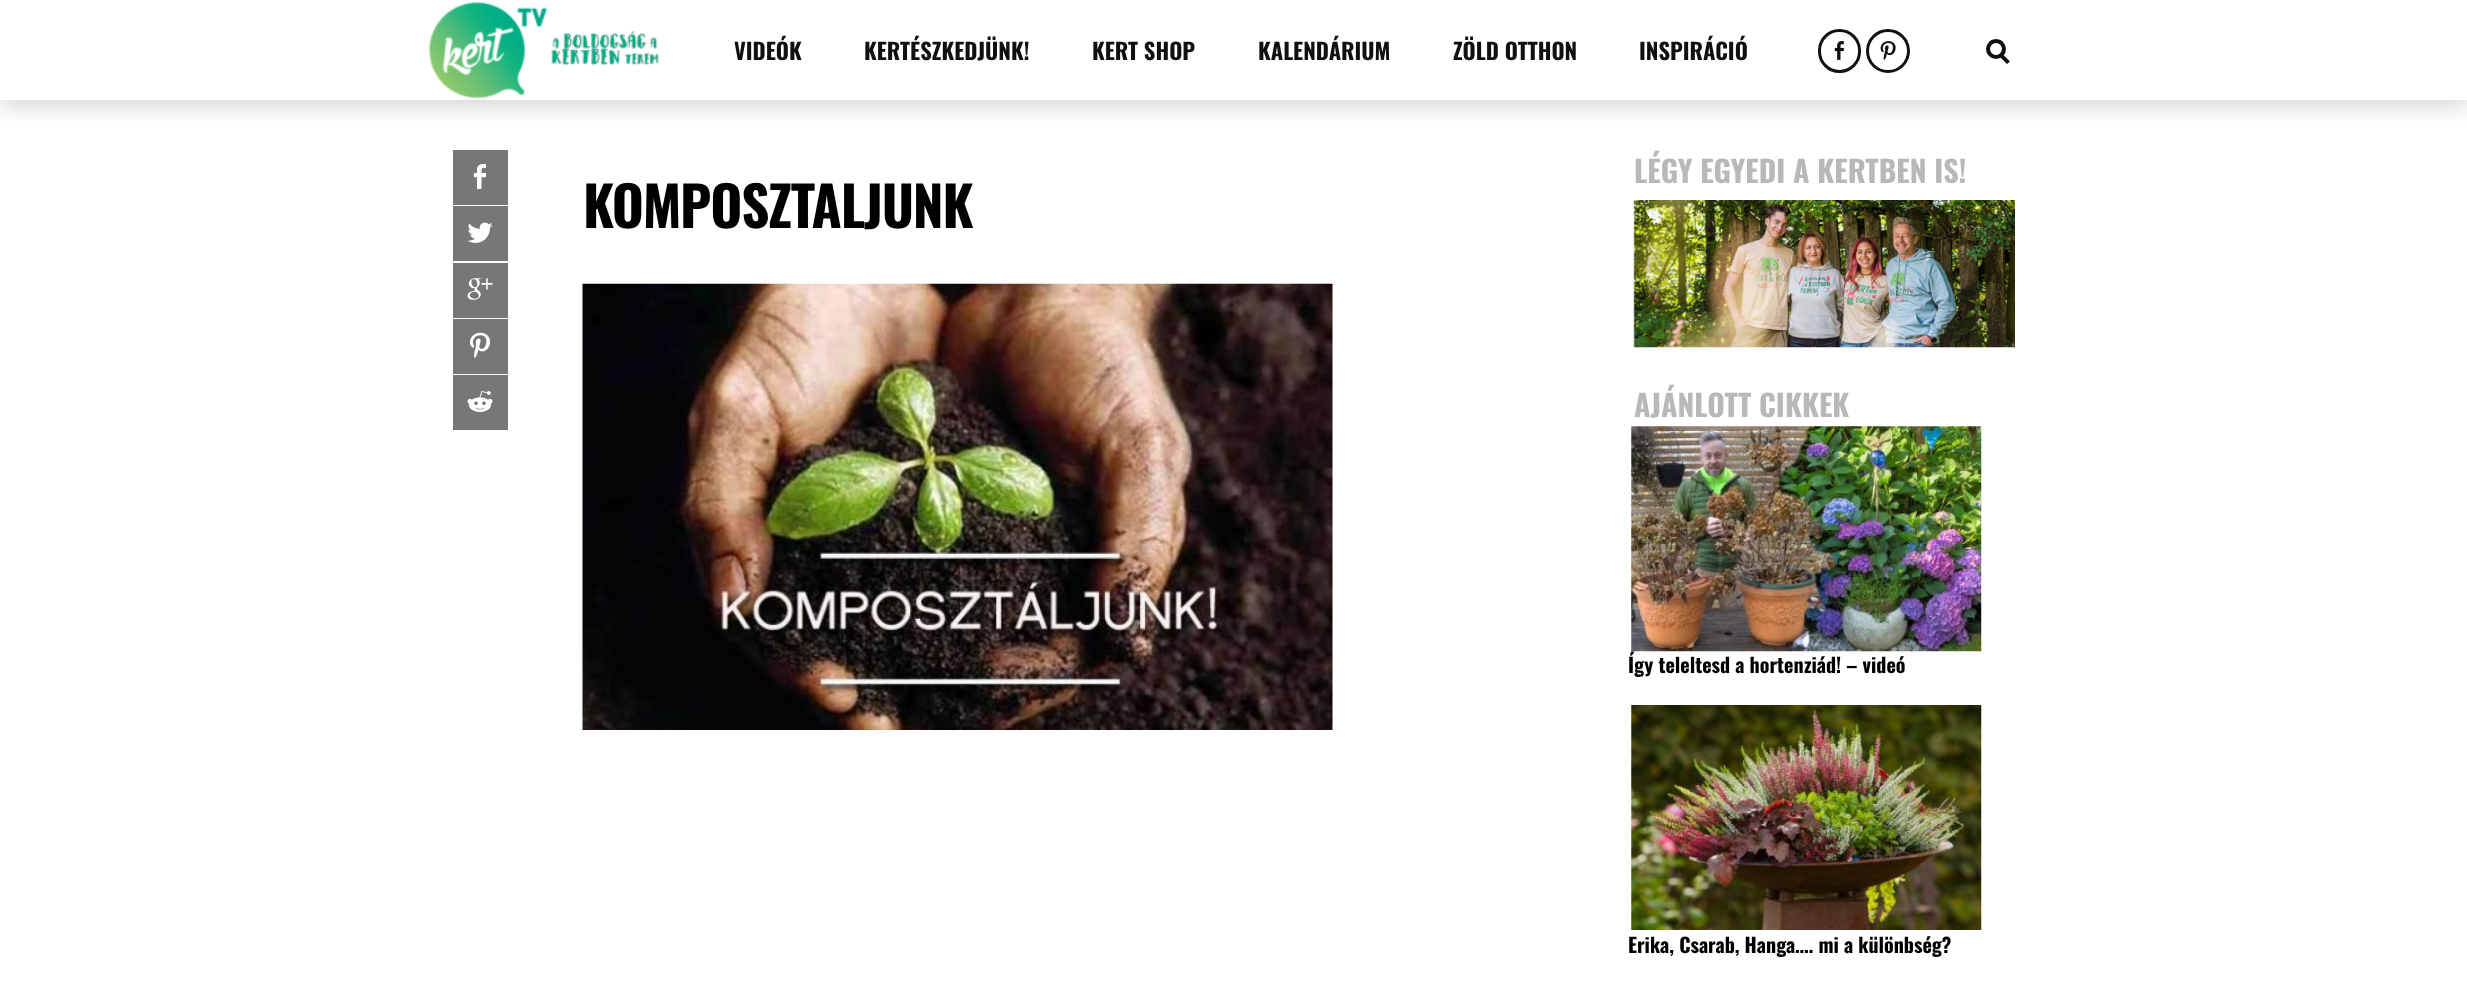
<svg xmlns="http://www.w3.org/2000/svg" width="2467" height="984">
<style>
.a{font:bold 22.5px Oswald;fill:#101010}
.b{font:bold 55px Oswald;letter-spacing:-1.25px;fill:#000}
.c{font:bold 30px Oswald;fill:#b8b8b8}
.d{font:bold 20px Oswald;fill:#000}
</style>
<defs>
<clipPath id="clip1"><path d="M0 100h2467v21H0z"/></clipPath>
</defs>
<rect width="100%" height="100%" fill="#fff"/>
<g clip-path="url(#clip1)">
<path fill="#00000040" filter="blur(15px)" d="M0 0h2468v100H0z"/>
</g>
<image href="1.png" x="428" y="1" width="231" height="98"/>
<rect fill="none" stroke="#101010" stroke-width="3" x="1819.5" y="30.5" width="40" height="41" rx="20"/>
<image href="2.png" x="1834" y="41" width="10" height="19"/>
<circle fill="none" stroke="#101010" stroke-width="3" cx="1888" cy="51" r="20.5"/>
<image href="3.png" x="1880" y="41" width="16" height="19"/>
<circle fill="none" stroke="#101010" stroke-width="4" cx="1996" cy="49" r="8"/>
<path fill="#101010" d="M2003 54.5l7 7l-3 2.5l-7-7z"/>
<path fill="#777" d="M453 150h55v55H453z"/>
<image href="4.png" x="473" y="164" width="14" height="25"/>
<path fill="#777" d="M453 206h55v55H453z"/>
<image href="5.png" x="467" y="222" width="26" height="21"/>
<path fill="#777" d="M453 263h55v55H453z"/>
<image href="6.png" x="467" y="278" width="26" height="22"/>
<path fill="#777" d="M453 319h55v55H453z"/>
<image href="7.png" x="470" y="332" width="20" height="26"/>
<path fill="#777" d="M453 375h55v55H453z"/>
<image href="8.png" x="467" y="391" width="26" height="21"/>
<image href="9.png" x="582" y="283" width="751" height="447"/>
<image href="10.png" x="1633" y="200" width="382" height="148"/>
<image href="11.png" x="1631" y="426" width="351" height="226"/>
<image href="12.png" x="1631" y="705" width="351" height="225"/>
<text class="a" x="734" y="60">VIDEÓK</text>
<text class="a" x="864" y="60">KERTÉSZKEDJÜNK!</text>
<text class="a" x="1092" y="60">KERT SHOP</text>
<text class="a" x="1258" y="60">KALENDÁRIUM</text>
<text class="a" x="1453" y="60">ZÖLD OTTHON</text>
<text class="a" x="1639" y="60">INSPIRÁCIÓ</text>
<text class="b" x="583" y="228">KOMPOSZTALJUNK</text>
<text class="c" x="1634" y="183">LÉGY EGYEDI A KERTBEN IS!</text>
<text class="c" x="1634" y="417">AJÁNLOTT CIKKEK</text>
<text class="d" x="1628" y="673">Így teleltesd a hortenziád! – videó</text>
<text class="d" x="1628" y="953">Erika, Csarab, Hanga…. mi a különbség?</text>
</svg>
